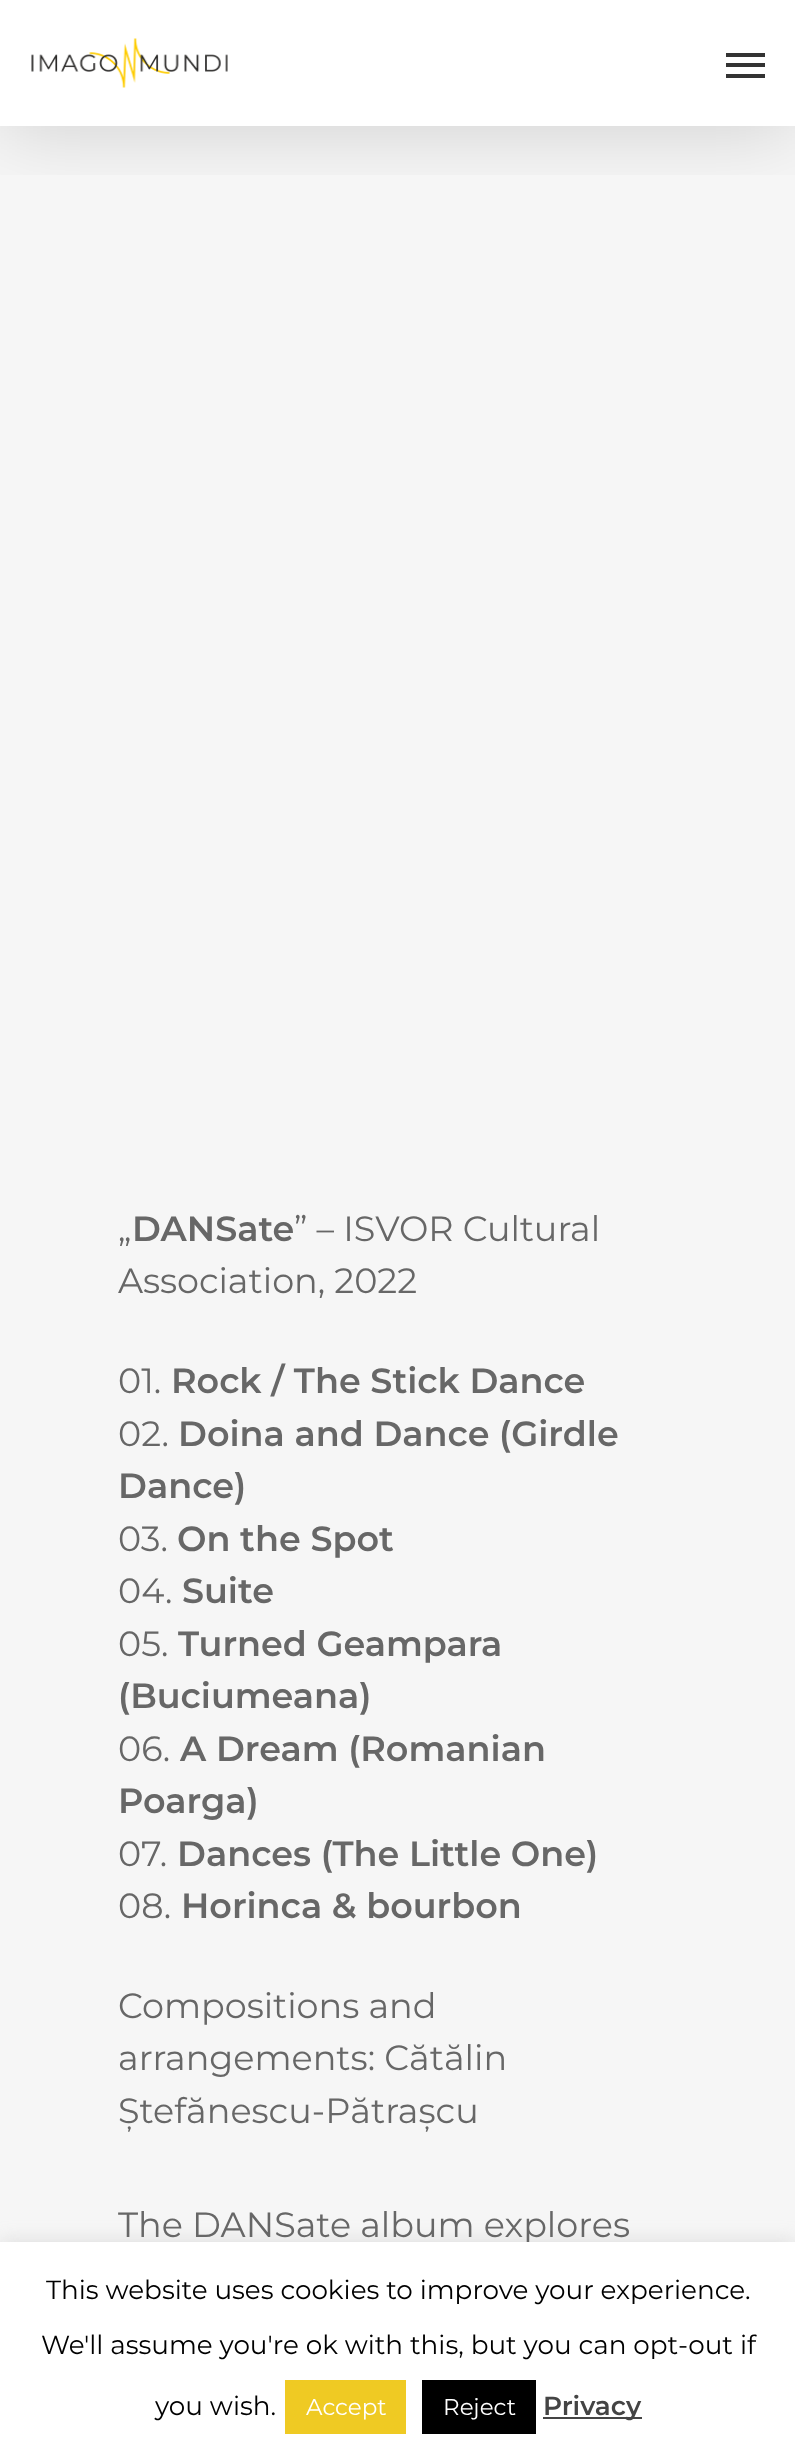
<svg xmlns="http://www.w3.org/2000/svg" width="795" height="2454">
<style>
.a{font:35px Montserrat;fill:#676767}
.b{font:600 35px Montserrat;fill:#676767}
.c{font:26.25px Montserrat;fill:#000}
.d{font:23px Montserrat;fill:#fff}
.e{font:600 26.25px Montserrat;fill:#444}
</style>
<defs>
<clipPath id="clip1"><path d="M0 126h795v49H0z"/></clipPath>
</defs>
<rect width="100%" height="100%" fill="#fff"/>
<path fill="#f6f6f6" d="M0 126h795v2116H0z"/>
<g clip-path="url(#clip1)">
<path fill="#00000026" filter="blur(39.5px)" d="M0 5h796v126H0z"/>
</g>
<image href="1.png" x="31" y="38" width="197" height="50"/>
<path fill="#333" d="M726 53h39v4H726z"/>
<path fill="#333" d="M726 74h39v4H726z"/>
<path fill="#333" d="M726 63h39v4H726z"/>
<path fill="#acabab4d" filter="blur(9px)" d="M0 2240h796v214H0z"/>
<text class="a" x="118" y="1241">„</text>
<text class="b" x="132" y="1241">DANSate</text>
<text class="a" x="294" y="1241">” – ISVOR Cultural</text>
<text class="a" x="118" y="1293">Association, 2022</text>
<text class="a" x="118" y="1393">01.</text>
<text class="b" x="171" y="1393">Rock / The Stick Dance</text>
<text class="a" x="118" y="1446">02.</text>
<text class="b" x="178" y="1446">Doina and Dance (Girdle</text>
<text class="b" x="118" y="1498">Dance)</text>
<text class="a" x="118" y="1551">03.</text>
<text class="b" x="177" y="1551">On the Spot</text>
<text class="a" x="118" y="1603">04.</text>
<text class="b" x="182" y="1603">Suite</text>
<text class="a" x="118" y="1656">05.</text>
<text class="b" x="178" y="1656">Turned Geampara</text>
<text class="b" x="118" y="1708">(Buciumeana)</text>
<text class="a" x="118" y="1761">06.</text>
<text class="b" x="180" y="1761">A Dream (Romanian</text>
<text class="b" x="118" y="1813">Poarga)</text>
<text class="a" x="118" y="1866">07.</text>
<text class="b" x="177" y="1866">Dances (The Little One)</text>
<text class="a" x="118" y="1918">08.</text>
<text class="b" x="181" y="1918">Horinca &amp; bourbon</text>
<text class="a" x="118" y="2018">Compositions and</text>
<text class="a" x="118" y="2070">arrangements: Cătălin</text>
<text class="a" x="118" y="2123">Ștefănescu-Pătrașcu</text>
<text class="a" x="118" y="2237">The DANSate album explores</text>
<path fill="#fff" d="M0 2242h795v212H0z"/>
<text class="c" x="46" y="2299">This website uses cookies to improve your experience.</text>
<text class="c" x="41" y="2354">We'll assume you're ok with this, but you can opt-out if</text>
<text class="c" x="155" y="2415">you wish.</text>
<path fill="#efca23" d="M285 2380h121v54H285z"/>
<text class="d" x="306" y="2415">Accept</text>
<path fill="#000" d="M422 2380h114v54H422z"/>
<text class="d" x="443" y="2415">Reject</text>
<path fill="#444" d="M543 2417h99v2H543z"/>
<text class="e" x="543" y="2415">Privacy</text>
</svg>
